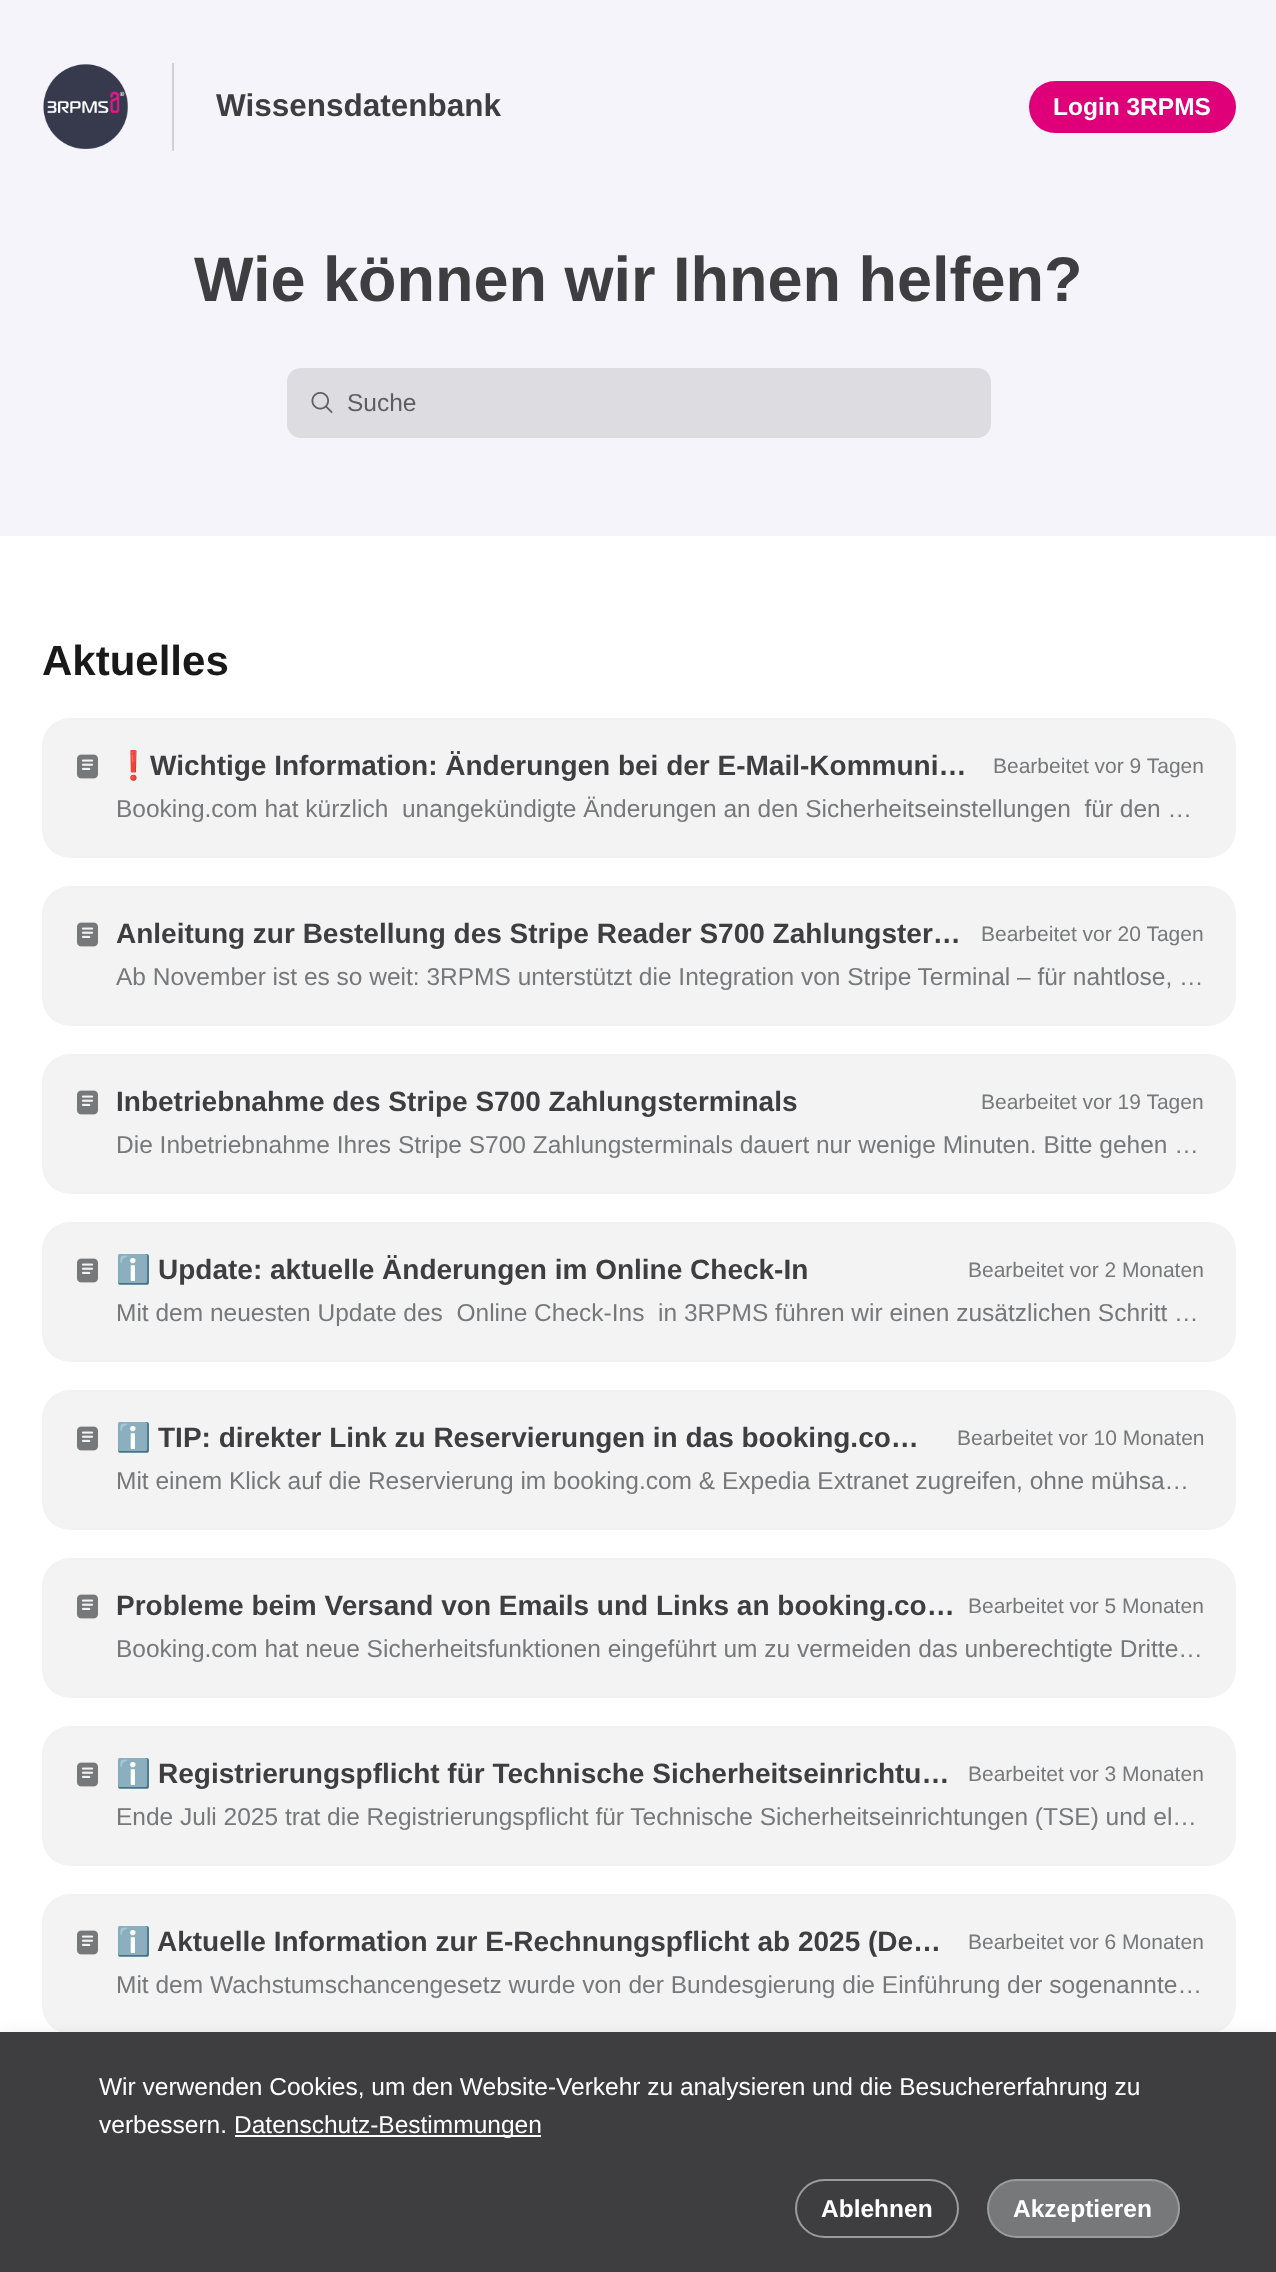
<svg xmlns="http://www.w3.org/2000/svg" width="1276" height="2272">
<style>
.a{font:bold 31.5px Liberation Sans;fill:#3e3e40}
.b{font:bold 24.5px Liberation Sans;fill:#fff}
.c{font:bold 63px Liberation Sans;fill:#3e3e40}
.d{font:24.5px Liberation Sans;fill:#5e5e60}
.e{font:bold 42px Liberation Sans;fill:#19191a}
.f{font:bold 28px Noto Color Emoji;fill:#3e3e40}
.g{font:bold 28px Liberation Sans;fill:#3e3e40}
.h{font:21px Liberation Sans;fill:#77787a}
.i{font:24.5px Liberation Sans;fill:#77787a}
.j{font:24.5px Liberation Sans;fill:#fff}
</style>
<defs>
<clipPath id="clip1"><path d="M116 749h862v35H116z"/></clipPath>
<clipPath id="clip2"><path d="M116 1253h838v35H116z"/></clipPath>
<clipPath id="clip3"><path d="M116 1421h827v35H116z"/></clipPath>
<clipPath id="clip4"><path d="M116 1757h838v35H116z"/></clipPath>
<clipPath id="clip5"><path d="M116 1925h838v35H116z"/></clipPath>
</defs>
<rect width="100%" height="100%" fill="#fff"/>
<path fill="#f4f4fa" d="M0 0h1276v536H0z"/>
<image href="1.png" x="43" y="64" width="85" height="85"/>
<path fill="#d0d0d5" d="M172 63h2v88H172z"/>
<rect fill="#df0079" x="1029" y="81" width="207" height="52" rx="26"/>
<rect fill="#dcdce1" x="287" y="368" width="704" height="70" rx="14"/>
<image href="2.png" x="311" y="392" width="22" height="21"/>
<rect fill="#f3f3f3" x="42" y="718" width="1194" height="140" rx="28"/>
<image href="3.png" x="77" y="754" width="21" height="25"/>
<rect fill="#f3f3f3" x="42" y="886" width="1194" height="140" rx="28"/>
<image href="3.png" x="77" y="922" width="21" height="25"/>
<rect fill="#f3f3f3" x="42" y="1054" width="1194" height="140" rx="28"/>
<image href="3.png" x="77" y="1090" width="21" height="25"/>
<rect fill="#f3f3f3" x="42" y="1222" width="1194" height="140" rx="28"/>
<image href="3.png" x="77" y="1258" width="21" height="25"/>
<rect fill="#f3f3f3" x="42" y="1390" width="1194" height="140" rx="28"/>
<image href="3.png" x="77" y="1426" width="21" height="25"/>
<rect fill="#f3f3f3" x="42" y="1558" width="1194" height="140" rx="28"/>
<image href="3.png" x="77" y="1594" width="21" height="25"/>
<rect fill="#f3f3f3" x="42" y="1726" width="1194" height="140" rx="28"/>
<image href="3.png" x="77" y="1762" width="21" height="25"/>
<rect fill="#f3f3f3" x="42" y="1894" width="1194" height="140" rx="28"/>
<image href="3.png" x="77" y="1930" width="21" height="25"/>
<path fill="#00000014" filter="blur(8px)" d="M0 2034h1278v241H0z"/>
<path fill="#3e3e40" d="M0 2032h1276v240H0z"/>
<path fill="#fff" d="M235 2135h306v2H235z"/>
<rect fill="none" stroke="#9b9c9e" stroke-width="2" x="796" y="2180" width="162" height="57" rx="28.5"/>
<rect fill="#77787a" stroke="#9b9c9e" stroke-width="2" x="988" y="2180" width="191" height="57" rx="28.5"/>
<text class="a" x="216" y="116">Wissensdatenbank</text>
<text class="b" x="1053" y="115">Login 3RPMS</text>
<text class="c" x="194" y="301">Wie können wir Ihnen helfen?</text>
<text class="d" x="347" y="411">Suche</text>
<text class="e" x="42" y="675">Aktuelles</text>
<g clip-path="url(#clip1)">
<text class="f" x="116" y="775">❗️</text>
</g>
<text class="g" x="150" y="775">Wichtige Information: Änderungen bei der E-Mail-Kommuni…</text>
<text class="h" x="993" y="773">Bearbeitet vor 9 Tagen</text>
<text class="i" xml:space="preserve" x="116" y="817">Booking.com hat kürzlich  unangekündigte Änderungen an den Sicherheitseinstellungen  für den …</text>
<text class="g" x="116" y="943">Anleitung zur Bestellung des Stripe Reader S700 Zahlungster…</text>
<text class="h" x="981" y="941">Bearbeitet vor 20 Tagen</text>
<text class="i" x="116" y="985">Ab November ist es so weit: 3RPMS unterstützt die Integration von Stripe Terminal – für nahtlose, …</text>
<text class="g" x="116" y="1111">Inbetriebnahme des Stripe S700 Zahlungsterminals</text>
<text class="h" x="981" y="1109">Bearbeitet vor 19 Tagen</text>
<text class="i" x="116" y="1153">Die Inbetriebnahme Ihres Stripe S700 Zahlungsterminals dauert nur wenige Minuten. Bitte gehen …</text>
<g clip-path="url(#clip2)">
<text class="f" x="116" y="1279">ℹ️</text>
</g>
<text class="g" x="158" y="1279">Update: aktuelle Änderungen im Online Check-In</text>
<text class="h" x="968" y="1277">Bearbeitet vor 2 Monaten</text>
<text class="i" xml:space="preserve" x="116" y="1321">Mit dem neuesten Update des  Online Check-Ins  in 3RPMS führen wir einen zusätzlichen Schritt …</text>
<g clip-path="url(#clip3)">
<text class="f" x="116" y="1447">ℹ️</text>
</g>
<text class="g" x="158" y="1447">TIP: direkter Link zu Reservierungen in das booking.co…</text>
<text class="h" x="957" y="1445">Bearbeitet vor 10 Monaten</text>
<text class="i" x="116" y="1489">Mit einem Klick auf die Reservierung im booking.com &amp; Expedia Extranet zugreifen, ohne mühsa…</text>
<text class="g" x="116" y="1615">Probleme beim Versand von Emails und Links an booking.co…</text>
<text class="h" x="968" y="1613">Bearbeitet vor 5 Monaten</text>
<text class="i" x="116" y="1657">Booking.com hat neue Sicherheitsfunktionen eingeführt um zu vermeiden das unberechtigte Dritte…</text>
<g clip-path="url(#clip4)">
<text class="f" x="116" y="1783">ℹ️</text>
</g>
<text class="g" x="158" y="1783">Registrierungspflicht für Technische Sicherheitseinrichtu…</text>
<text class="h" x="968" y="1781">Bearbeitet vor 3 Monaten</text>
<text class="i" x="116" y="1825">Ende Juli 2025 trat die Registrierungspflicht für Technische Sicherheitseinrichtungen (TSE) und el…</text>
<g clip-path="url(#clip5)">
<text class="f" x="116" y="1951">ℹ️</text>
</g>
<text class="g" x="157" y="1951">Aktuelle Information zur E-Rechnungspflicht ab 2025 (De…</text>
<text class="h" x="968" y="1949">Bearbeitet vor 6 Monaten</text>
<text class="i" x="116" y="1993">Mit dem Wachstumschancengesetz wurde von der Bundesgierung die Einführung der sogenannte…</text>
<text class="j" x="99" y="2095">Wir verwenden Cookies, um den Website-Verkehr zu analysieren und die Besuchererfahrung zu</text>
<text class="j" x="99" y="2133">verbessern.</text>
<text class="j" x="234" y="2133">Datenschutz-Bestimmungen</text>
<text class="b" x="821" y="2217">Ablehnen</text>
<text class="b" x="1013" y="2217">Akzeptieren</text>
</svg>
